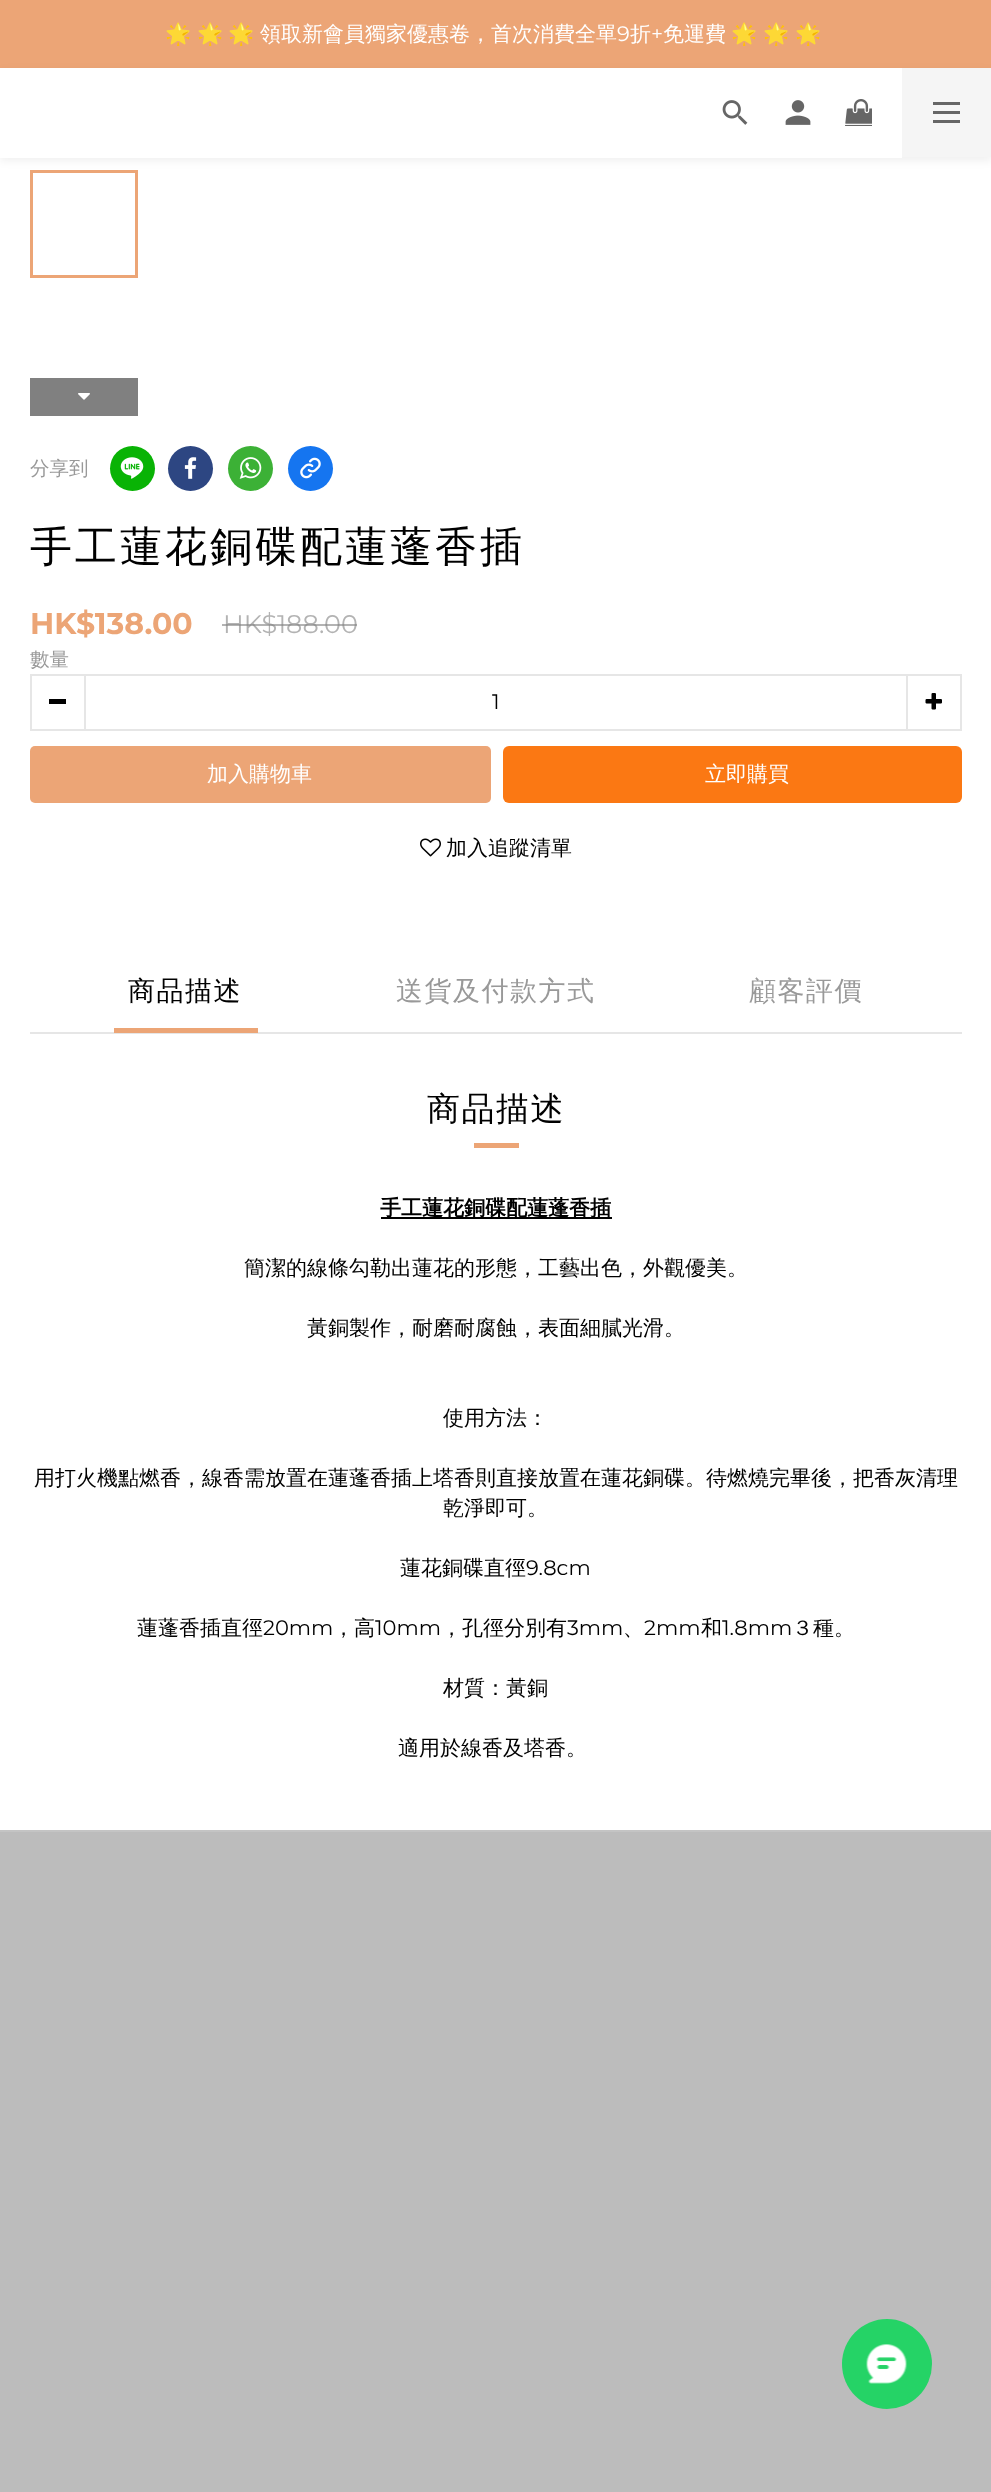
<svg xmlns="http://www.w3.org/2000/svg" width="991" height="2492">
<style>
.a{font:21px Noto Color Emoji;fill:#fff}
.b{font:500 21px WenQuanYi Zen Hei;fill:#fff}
.c{font:21px Montserrat;fill:#fff}
.d{font:500 19.5px WenQuanYi Zen Hei;fill:#999}
.e{font:500 42px WenQuanYi Zen Hei;letter-spacing:3px;fill:#000}
.f{font:bold 30px Montserrat;fill:#eca576}
.g{font:25.5px Montserrat;fill:#b3b3b3}
.h{font:21px Montserrat;fill:#000}
.i{font:500 21px WenQuanYi Zen Hei;fill:#000}
.j{font:500 27px WenQuanYi Zen Hei;letter-spacing:1.5px;fill:#000}
.k{font:500 27px WenQuanYi Zen Hei;letter-spacing:1.5px;fill:#999}
.l{font:500 33px WenQuanYi Zen Hei;letter-spacing:1.5px;fill:#000}
.m{font:bold 21px WenQuanYi Zen Hei;fill:#000}
</style>
<rect width="100%" height="100%" fill="#fff"/>
<path fill="#eca576" d="M0 0h991v68H0z"/>
<path fill="none" stroke="#eca576" stroke-width="3" d="M31.5 171.5h105v105H31.5z"/>
<path fill="#0000000f" filter="blur(4.5px)" d="M0 71h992v90H0z"/>
<path fill="#fff" d="M0 68h902v90H0z"/>
<image href="1.png" x="722" y="100" width="26" height="25"/>
<image href="2.png" x="785" y="100" width="26" height="25"/>
<image href="3.png" x="845" y="99" width="27" height="27"/>
<path fill="#f5f5f5" d="M902 68h89v89H902z"/>
<path fill="#666" d="M933 111h27v3H933z"/>
<path fill="#666" d="M933 102h27v3H933z"/>
<path fill="#666" d="M933 120h27v3H933z"/>
<path fill="#808080" d="M30 378h108v38H30z"/>
<image href="4.png" x="78" y="393" width="12" height="7"/>
<circle fill="#09b305" cx="132.5" cy="468.5" r="22.5"/>
<image href="5.png" x="120" y="457" width="24" height="22"/>
<circle fill="#2d4682" cx="190.5" cy="468.5" r="22.5"/>
<image href="6.png" x="184" y="457" width="13" height="22"/>
<circle fill="#3cb136" cx="250.5" cy="468.5" r="22.5"/>
<image href="7.png" x="239" y="457" width="23" height="22"/>
<circle fill="#1575f0" cx="310.5" cy="468.5" r="22.5"/>
<image href="8.png" x="300" y="457" width="21" height="22"/>
<path fill="#e6e6e6" d="M84 674h824v2H84z"/>
<path fill="#e6e6e6" d="M84 729h824v2H84z"/>
<path fill="none" stroke="#e6e6e6" stroke-width="2" d="M31 675h54v55H31z"/>
<path fill="#000" d="M49 699h17v5H49z"/>
<path fill="none" stroke="#e6e6e6" stroke-width="2" d="M907 675h54v55H907z"/>
<image href="9.png" x="925" y="693" width="17" height="17"/>
<rect fill="#eca576" x="30" y="746" width="461" height="57" rx="5"/>
<rect fill="#fb7813" x="503" y="746" width="459" height="57" rx="6"/>
<image href="10.png" x="420" y="838" width="21" height="19"/>
<path fill="#e6e6e6" d="M30 1032h932v2H30z"/>
<path fill="#eca576" d="M114 1028h144v5H114z"/>
<path fill="#eca576" d="M474 1143h45v5H474z"/>
<path fill="#000" d="M381 1217h231v2H381z"/>
<path fill="#bcbcbc" d="M0 1832h991v660H0z"/>
<path fill="#c4c4c4" d="M0 1830h991v2H0z"/>
<circle fill="#25d366" cx="887" cy="2364" r="45"/>
<image href="11.png" x="866" y="2344" width="41" height="40"/>
<text class="a" x="165" y="41">🌟</text>
<text class="a" x="197" y="41">🌟</text>
<text class="a" x="228" y="41">🌟</text>
<text class="b" x="260" y="41">領取新會員獨家優惠卷，首次消費全單</text>
<text class="c" x="617" y="41">9</text>
<text class="b" x="630" y="41">折</text>
<text class="c" x="651" y="41">+</text>
<text class="b" x="663" y="41">免運費</text>
<text class="a" x="731" y="41">🌟</text>
<text class="a" x="763" y="41">🌟</text>
<text class="a" x="795" y="41">🌟</text>
<text class="d" x="30" y="475">分享到</text>
<text class="e" x="30" y="561">手工蓮花銅碟配蓮蓬香插</text>
<text class="f" x="30" y="634">HK$138.00</text>
<text class="g" x="223" y="633">HK$188.00</text>
<path fill="#80808099" d="M222 624h135v2H222z"/>
<text class="d" x="30" y="666">數量</text>
<text class="h" x="492" y="709">1</text>
<text class="b" x="207" y="781">加入購物車</text>
<text class="b" x="705" y="781">立即購買</text>
<text class="i" x="446" y="855">加入追蹤清單</text>
<text class="j" x="128" y="1000">商品描述</text>
<text class="k" x="396" y="1000">送貨及付款方式</text>
<text class="k" x="749" y="1000">顧客評價</text>
<text class="l" x="427" y="1120">商品描述</text>
<text class="m" x="380" y="1215">手工蓮花銅碟配蓮蓬香插</text>
<text class="i" x="244" y="1275">簡潔的線條勾勒出蓮花的形態，工藝出色，外觀優美。</text>
<text class="i" x="307" y="1335">黃銅製作，耐磨耐腐蝕，表面細膩光滑。</text>
<text class="i" x="443" y="1425">使用方法：</text>
<text class="i" x="34" y="1485">用打火機點燃香，線香需放置在蓮蓬香插上塔香則直接放置在蓮花銅碟。待燃燒完畢後，把香灰清理</text>
<text class="i" x="443" y="1515">乾淨即可。</text>
<text class="i" x="400" y="1575">蓮花銅碟直徑</text>
<text class="h" x="526" y="1575">9.8cm</text>
<text class="i" x="137" y="1635">蓮蓬香插直徑</text>
<text class="h" x="263" y="1635">20mm</text>
<text class="i" x="333" y="1635">，高</text>
<text class="h" x="375" y="1635">10mm</text>
<text class="i" x="441" y="1635">，孔徑分別有</text>
<text class="h" x="567" y="1635">3mm</text>
<text class="i" x="623" y="1635">、</text>
<text class="h" x="644" y="1635">2mm</text>
<text class="i" x="701" y="1635">和</text>
<text class="h" x="722" y="1635">1.8mm</text>
<text class="i" x="792" y="1635">３種。</text>
<text class="i" x="443" y="1695">材質：黃銅</text>
<text class="i" x="398" y="1755">適用於線香及塔香。</text>
</svg>
